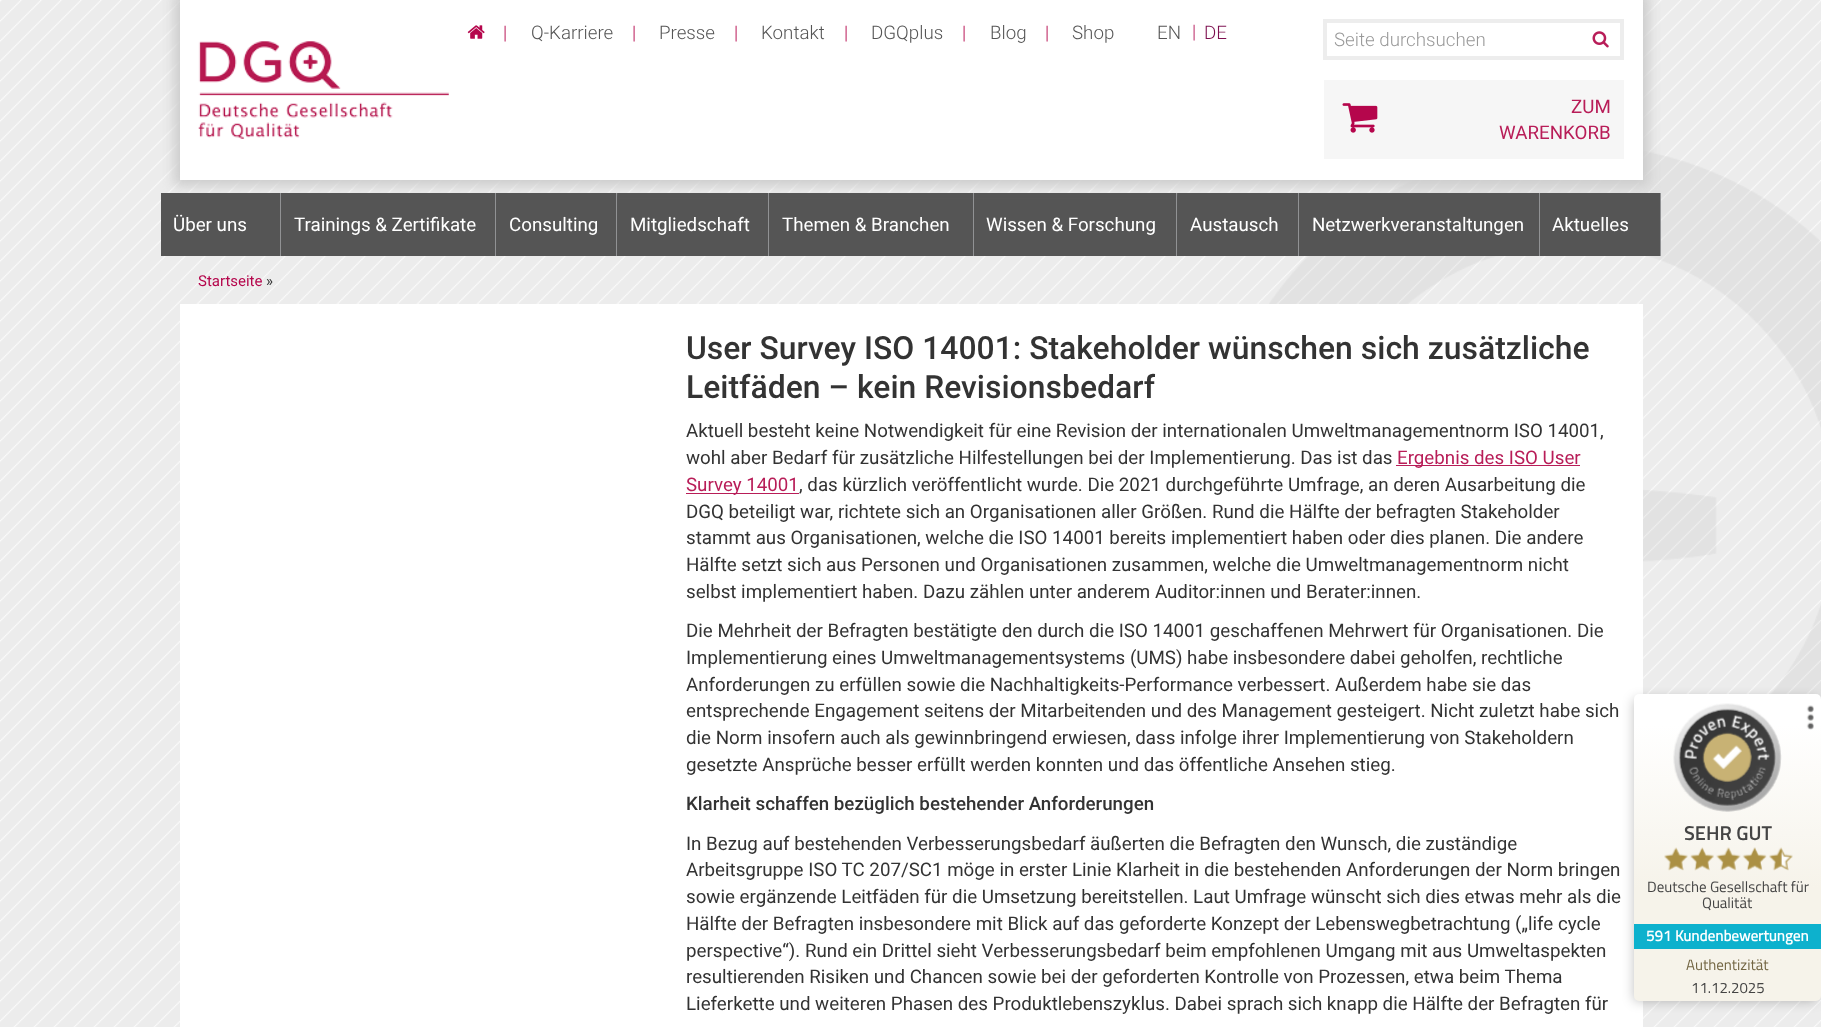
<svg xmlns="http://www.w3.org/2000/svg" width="1821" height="1027">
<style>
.a{font:300 18.75px Roboto;fill:#b5064c}
.b{font:300 18.75px Roboto;fill:#555}
.c{font:300 18.75px Roboto;fill:#b51558}
.d{font:300 18.75px Roboto;fill:#7d0f4f}
.e{font:300 18.75px Roboto;fill:#999}
.f{font:18.75px Roboto;fill:#b81d58}
.g{font:18.75px Roboto;fill:#fff}
.h{font:15px Roboto;fill:#b5064c}
.i{font:15px Roboto;fill:#333}
.j{font:500 31.9px Roboto;fill:#333}
.k{font:18.75px Roboto;fill:#333}
.l{font:500 18.75px Roboto;fill:#333}
.m{font:600 20px Titillium Web;fill:#444}
.n{font:15px Titillium Web;fill:#444}
.o{font:bold 15px Titillium Web;letter-spacing:0.1px;fill:#fff}
.p{font:15px Titillium Web;fill:#726542}
</style>
<defs>
<linearGradient id="g1" gradientUnits="userSpaceOnUse" x1="1728" y1="1001" x2="1728" y2="694"><stop offset="0.37" stop-color="#f6f3ea"/><stop offset="0.9" stop-color="#fff"/></linearGradient>
</defs>
<rect width="100%" height="100%" fill="#fff"/>
<image href="1.png" x="0" y="0" width="1821" height="1027"/>
<image href="6.png" x="1269" y="151" width="552" height="548"/>
<path fill="#555" d="M617 193h561v63H617z"/>
<path fill="#ccc" filter="blur(6px)" d="M174 -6h1475v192H174z"/>
<path fill="#fff" d="M180 0h1463v180H180z"/>
<image href="2.png" x="467" y="25" width="18" height="14"/>
<path fill="none" stroke="#ededed" stroke-width="4" d="M1325 21h297v37H1325z"/>
<image href="3.png" x="1592" y="31" width="17" height="17"/>
<image href="4.png" x="198" y="41" width="251" height="98"/>
<path fill="#f6f6f6" d="M1324 80h300v79H1324z"/>
<image href="5.png" x="1342" y="103" width="36" height="30"/>
<path fill="#919294" d="M280 193h1v63H280z"/>
<path fill="#555" d="M161 193h119v63H161z"/>
<path fill="#919294" d="M495 193h1v63H495z"/>
<path fill="#555" d="M281 193h214v63H281z"/>
<path fill="#919294" d="M616 193h1v63H616z"/>
<path fill="#555" d="M496 193h120v63H496z"/>
<path fill="#919294" d="M768 193h1v63H768z"/>
<path fill="#555" d="M618 193h150v5H618z"/>
<path fill="#919294" d="M973 193h1v63H973z"/>
<path fill="#555" d="M769 193h204v5H769z"/>
<path fill="#919294" d="M1176 193h1v63H1176z"/>
<path fill="#555" d="M974 193h202v5H974z"/>
<path fill="#919294" d="M1298 193h1v63H1298z"/>
<path fill="#555" d="M1178 193h120v63H1178z"/>
<path fill="#919294" d="M1539 193h1v63H1539z"/>
<path fill="#555" d="M1299 193h240v63H1299z"/>
<path fill="#919294" d="M1660 193h1v63H1660z"/>
<path fill="#555" d="M1540 193h120v63H1540z"/>
<path fill="#fff" d="M180 304h1463v723H180z"/>
<path fill="#b81d58" d="M1396 465h184v1H1396z"/>
<path fill="#b81d58" d="M686 493h113v1H686z"/>
<rect fill="#00000040" filter="blur(6px)" x="1634" y="699" width="182" height="302" rx="2.5"/>
<rect fill="url(#g1)" x="1634" y="694" width="187" height="307" rx="5"/>
<image href="7.png" x="1673" y="703" width="109" height="109"/>
<image href="8.png" x="1806" y="705" width="8" height="25"/>
<image href="9.png" x="1664" y="847" width="24" height="24"/>
<image href="10.png" x="1690" y="847" width="24" height="24"/>
<image href="11.png" x="1716" y="847" width="25" height="24"/>
<image href="12.png" x="1742" y="847" width="25" height="24"/>
<image href="13.png" x="1769" y="847" width="24" height="24"/>
<path fill="#0db1cd" d="M1634 924h187v25H1634z"/>
<text class="a" x="503" y="39">|</text>
<text class="b" x="531" y="39">Q-Karriere</text>
<text class="a" x="632" y="39">|</text>
<text class="b" x="659" y="39">Presse</text>
<text class="a" x="734" y="39">|</text>
<text class="b" x="761" y="39">Kontakt</text>
<text class="a" x="844" y="39">|</text>
<text class="b" x="871" y="39">DGQplus</text>
<text class="a" x="962" y="39">|</text>
<text class="b" x="990" y="39">Blog</text>
<text class="a" x="1045" y="39">|</text>
<text class="b" x="1072" y="39">Shop</text>
<text class="b" x="1157" y="39">EN</text>
<text class="c" x="1192" y="38">|</text>
<text class="d" x="1204" y="39">DE</text>
<text class="e" x="1334" y="46">Seite durchsuchen</text>
<text class="f" x="1571" y="113">ZUM</text>
<text class="f" x="1499" y="139">WARENKORB</text>
<text class="g" x="173" y="231">Über uns</text>
<text class="g" x="294" y="231">Trainings &amp; Zertifikate</text>
<text class="g" x="509" y="231">Consulting</text>
<text class="g" x="630" y="231">Mitgliedschaft</text>
<text class="g" x="782" y="231">Themen &amp; Branchen</text>
<text class="g" x="986" y="231">Wissen &amp; Forschung</text>
<text class="g" x="1190" y="231">Austausch</text>
<text class="g" x="1312" y="231">Netzwerkveranstaltungen</text>
<text class="g" x="1552" y="231">Aktuelles</text>
<text class="h" x="198" y="286">Startseite</text>
<text class="i" x="266" y="286">»</text>
<text class="j" x="686" y="359">User Survey ISO 14001: Stakeholder wünschen sich zusätzliche</text>
<text class="j" x="686" y="398">Leitfäden – kein Revisionsbedarf</text>
<text class="k" x="686" y="437">Aktuell besteht keine Notwendigkeit für eine Revision der internationalen Umweltmanagementnorm ISO 14001,</text>
<text class="k" x="686" y="464">wohl aber Bedarf für zusätzliche Hilfestellungen bei der Implementierung. Das ist das</text>
<text class="f" x="1397" y="464">Ergebnis des ISO User</text>
<text class="f" x="686" y="491">Survey 14001</text>
<text class="k" x="799" y="491">, das kürzlich veröffentlicht wurde. Die 2021 durchgeführte Umfrage, an deren Ausarbeitung die</text>
<text class="k" x="686" y="518">DGQ beteiligt war, richtete sich an Organisationen aller Größen. Rund die Hälfte der befragten Stakeholder</text>
<text class="k" x="686" y="544">stammt aus Organisationen, welche die ISO 14001 bereits implementiert haben oder dies planen. Die andere</text>
<text class="k" x="686" y="571">Hälfte setzt sich aus Personen und Organisationen zusammen, welche die Umweltmanagementnorm nicht</text>
<text class="k" x="686" y="598">selbst implementiert haben. Dazu zählen unter anderem Auditor:innen und Berater:innen.</text>
<text class="k" x="686" y="637">Die Mehrheit der Befragten bestätigte den durch die ISO 14001 geschaffenen Mehrwert für Organisationen. Die</text>
<text class="k" x="686" y="664">Implementierung eines Umweltmanagementsystems (UMS) habe insbesondere dabei geholfen, rechtliche</text>
<text class="k" x="686" y="691">Anforderungen zu erfüllen sowie die Nachhaltigkeits-Performance verbessert. Außerdem habe sie das</text>
<text class="k" x="686" y="717">entsprechende Engagement seitens der Mitarbeitenden und des Management gesteigert. Nicht zuletzt habe sich</text>
<text class="k" x="686" y="744">die Norm insofern auch als gewinnbringend erwiesen, dass infolge ihrer Implementierung von Stakeholdern</text>
<text class="k" x="686" y="771">gesetzte Ansprüche besser erfüllt werden konnten und das öffentliche Ansehen stieg.</text>
<text class="l" x="686" y="810">Klarheit schaffen bezüglich bestehender Anforderungen</text>
<text class="k" x="686" y="850">In Bezug auf bestehenden Verbesserungsbedarf äußerten die Befragten den Wunsch, die zuständige</text>
<text class="k" x="686" y="876">Arbeitsgruppe ISO TC 207/SC1 möge in erster Linie Klarheit in die bestehenden Anforderungen der Norm bringen</text>
<text class="k" x="686" y="903">sowie ergänzende Leitfäden für die Umsetzung bereitstellen. Laut Umfrage wünscht sich dies etwas mehr als die</text>
<text class="k" x="686" y="930">Hälfte der Befragten insbesondere mit Blick auf das geforderte Konzept der Lebenswegbetrachtung („life cycle</text>
<text class="k" x="686" y="957">perspective“). Rund ein Drittel sieht Verbesserungsbedarf beim empfohlenen Umgang mit aus Umweltaspekten</text>
<text class="k" x="686" y="983">resultierenden Risiken und Chancen sowie bei der geforderten Kontrolle von Prozessen, etwa beim Thema</text>
<text class="k" x="686" y="1010">Lieferkette und weiteren Phasen des Produktlebenszyklus. Dabei sprach sich knapp die Hälfte der Befragten für</text>
<text class="m" x="1684" y="840">SEHR GUT</text>
<text class="n" x="1647" y="892">Deutsche Gesellschaft für</text>
<text class="n" x="1702" y="908">Qualität</text>
<text class="o" x="1646" y="941">591 Kundenbewertungen</text>
<text class="p" x="1686" y="970">Authentizität</text>
<text class="n" x="1691" y="993">11.12.2025</text>
</svg>
